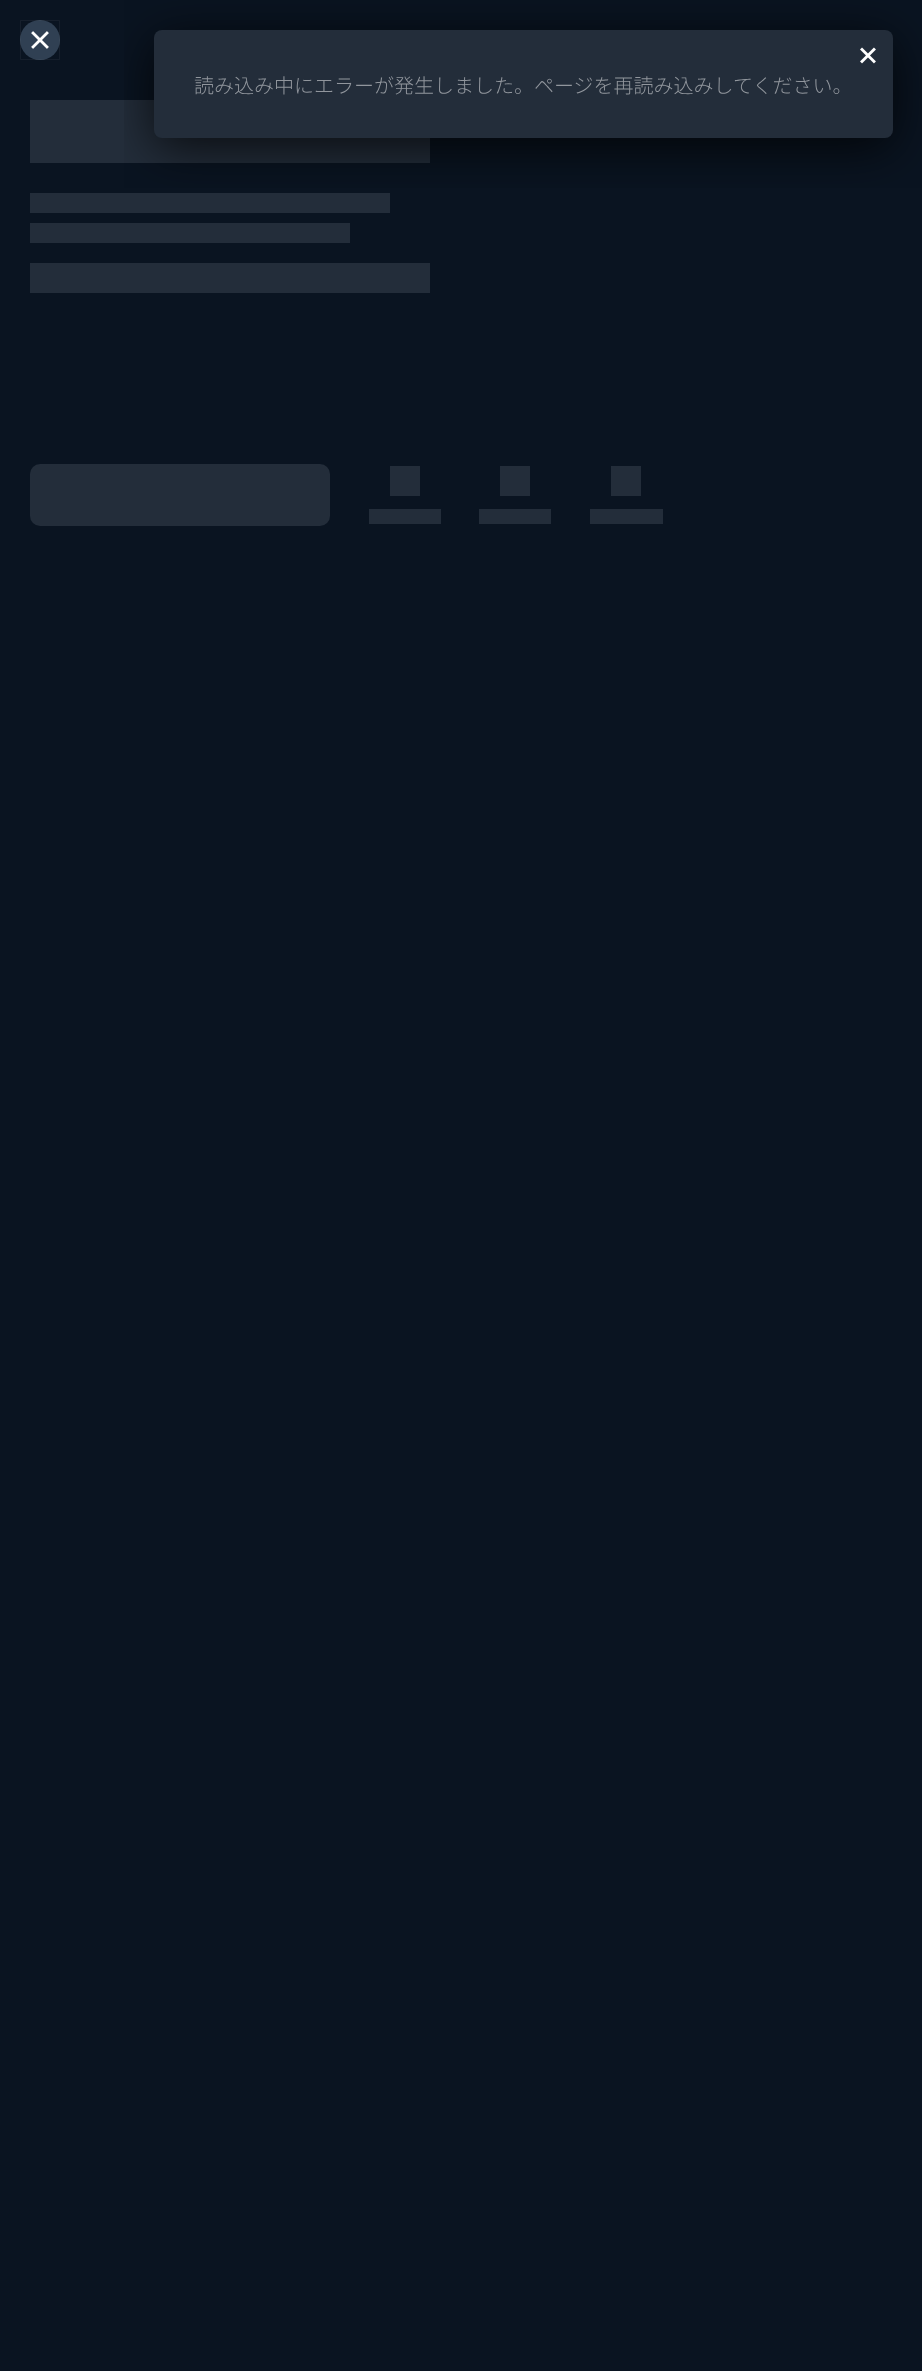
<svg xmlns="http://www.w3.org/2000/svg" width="922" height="2371">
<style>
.a{font:300 20px Noto Sans JP;fill:#91969d}
</style>
<defs>
<clipPath id="clip1"><path d="M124 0h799v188H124z"/></clipPath>
</defs>
<rect width="100%" height="100%" fill="#0a1421"/>
<circle fill="#304053" cx="40" cy="40" r="20"/>
<path fill="none" stroke="#ffffff0d" d="M20.5 20.5h39v39H20.5z"/>
<image href="1.png" x="31" y="31" width="18" height="18"/>
<path fill="#232d3a" d="M30 100h400v63H30z"/>
<path fill="#232d3a" d="M30 193h360v20H30z"/>
<path fill="#232d3a" d="M30 223h320v20H30z"/>
<path fill="#232d3a" d="M30 263h400v30H30z"/>
<rect fill="#232d3a" x="30" y="464" width="300" height="62" rx="10"/>
<path fill="#232d3a" d="M390 466h30v30H390z"/>
<path fill="#232d3a" d="M369 509h72v15H369z"/>
<path fill="#232d3a" d="M500 466h30v30H500z"/>
<path fill="#232d3a" d="M479 509h72v15H479z"/>
<path fill="#232d3a" d="M611 466h30v30H611z"/>
<path fill="#232d3a" d="M590 509h73v15H590z"/>
<g clip-path="url(#clip1)">
<rect fill="#000000bf" filter="blur(25px)" x="154" y="40" width="739" height="108" rx="8"/>
</g>
<rect fill="#232d3a" x="154" y="30" width="739" height="108" rx="8"/>
<image href="2.png" x="860" y="47" width="16" height="17"/>
<text class="a" x="194" y="93">読み込み中にエラーが発生しました。ページを再読み込みしてください。</text>
</svg>
